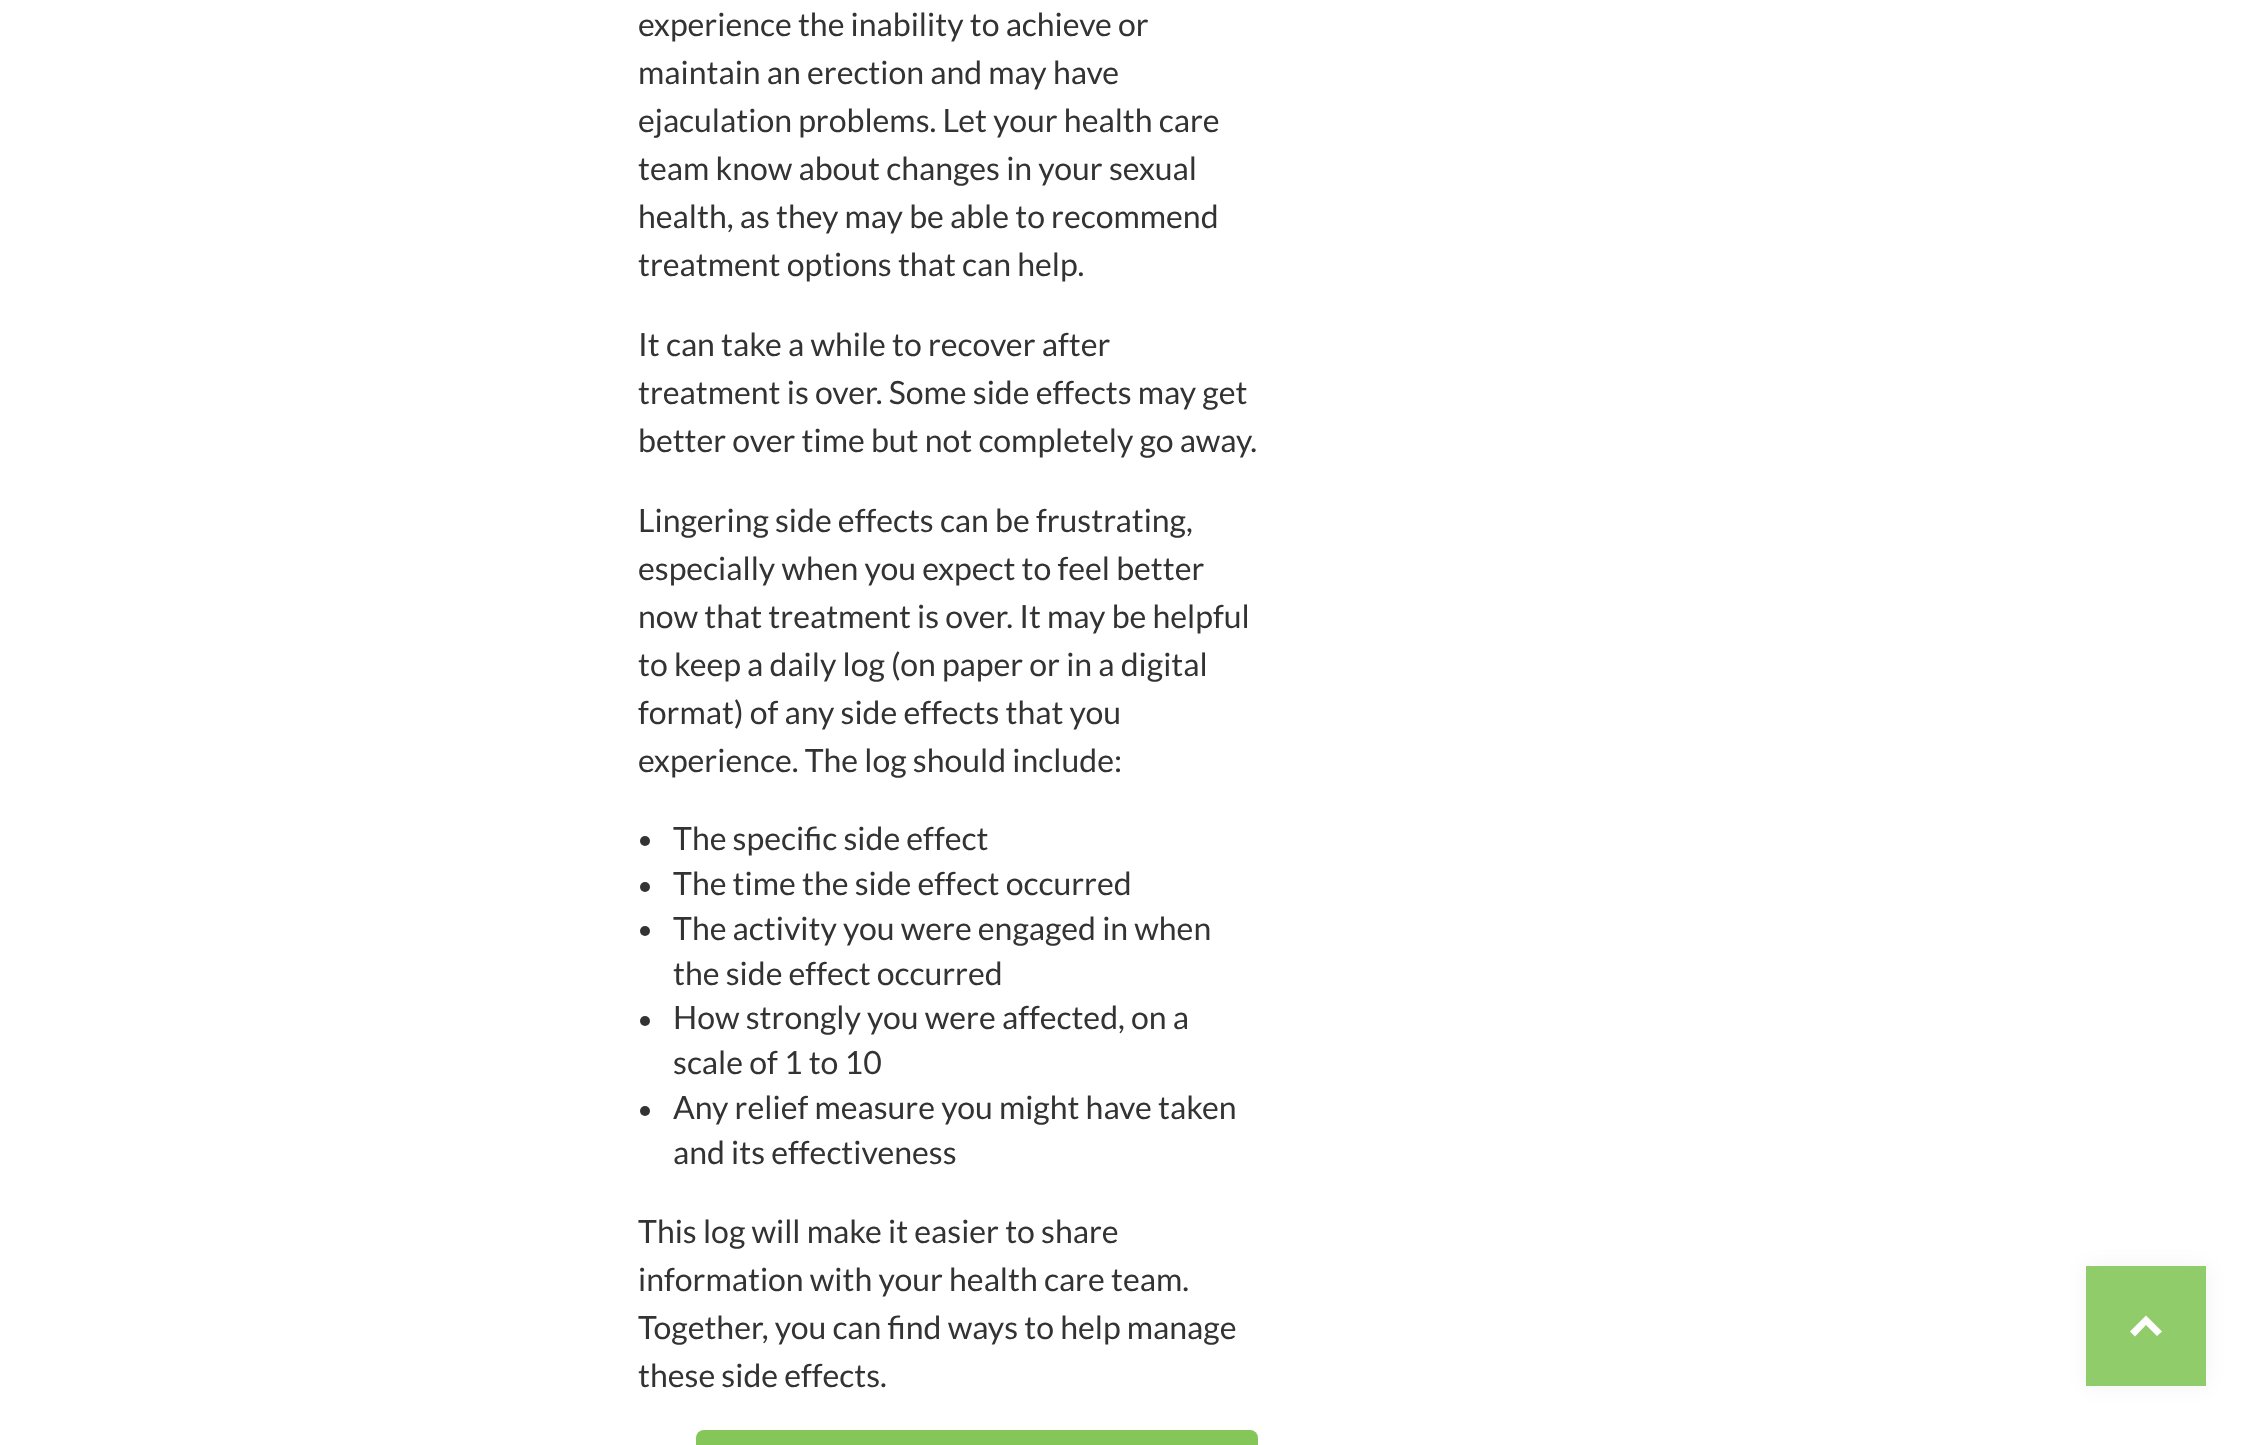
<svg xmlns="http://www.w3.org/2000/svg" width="2265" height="1445">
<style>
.a{font:32px Lato;fill:#333}
</style>
<rect width="100%" height="100%" fill="#fff"/>
<circle fill="#333" cx="645" cy="841" r="5"/>
<circle fill="#333" cx="645" cy="887" r="5"/>
<circle fill="#333" cx="645" cy="931" r="5"/>
<circle fill="#333" cx="645" cy="1021" r="5"/>
<circle fill="#333" cx="645" cy="1111" r="5"/>
<rect fill="#85c659" x="696" y="1430" width="562" height="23" rx="8"/>
<path fill="#0000000d" filter="blur(10px)" d="M2086 1266h120v120H2086z"/>
<path fill="#91cc6a" d="M2086 1266h120v120H2086z"/>
<path fill="#fff" d="M2146 1315.5l16 16l-5 4.5l-11-11l-11 11.5l-5-5z"/>
<text class="a" x="638" y="36">experience the inability to achieve or</text>
<text class="a" x="638" y="84">maintain an erection and may have</text>
<text class="a" x="638" y="132">ejaculation problems. Let your health care</text>
<text class="a" x="638" y="180">team know about changes in your sexual</text>
<text class="a" x="638" y="228">health, as they may be able to recommend</text>
<text class="a" x="638" y="276">treatment options that can help.</text>
<text class="a" x="638" y="356">It can take a while to recover after</text>
<text class="a" x="638" y="404">treatment is over. Some side effects may get</text>
<text class="a" x="638" y="452">better over time but not completely go away.</text>
<text class="a" x="638" y="532">Lingering side effects can be frustrating,</text>
<text class="a" x="638" y="580">especially when you expect to feel better</text>
<text class="a" x="638" y="628">now that treatment is over. It may be helpful</text>
<text class="a" x="638" y="676">to keep a daily log (on paper or in a digital</text>
<text class="a" x="638" y="724">format) of any side effects that you</text>
<text class="a" x="638" y="772">experience. The log should include:</text>
<text class="a" x="673" y="850">The specific side effect</text>
<text class="a" x="673" y="895">The time the side effect occurred</text>
<text class="a" x="673" y="940">The activity you were engaged in when</text>
<text class="a" x="673" y="985">the side effect occurred</text>
<text class="a" x="673" y="1029">How strongly you were affected, on a</text>
<text class="a" x="673" y="1074">scale of 1 to 10</text>
<text class="a" x="673" y="1119">Any relief measure you might have taken</text>
<text class="a" x="673" y="1164">and its effectiveness</text>
<text class="a" x="638" y="1243">This log will make it easier to share</text>
<text class="a" x="638" y="1291">information with your health care team.</text>
<text class="a" x="638" y="1339">Together, you can find ways to help manage</text>
<text class="a" x="638" y="1387">these side effects.</text>
</svg>
